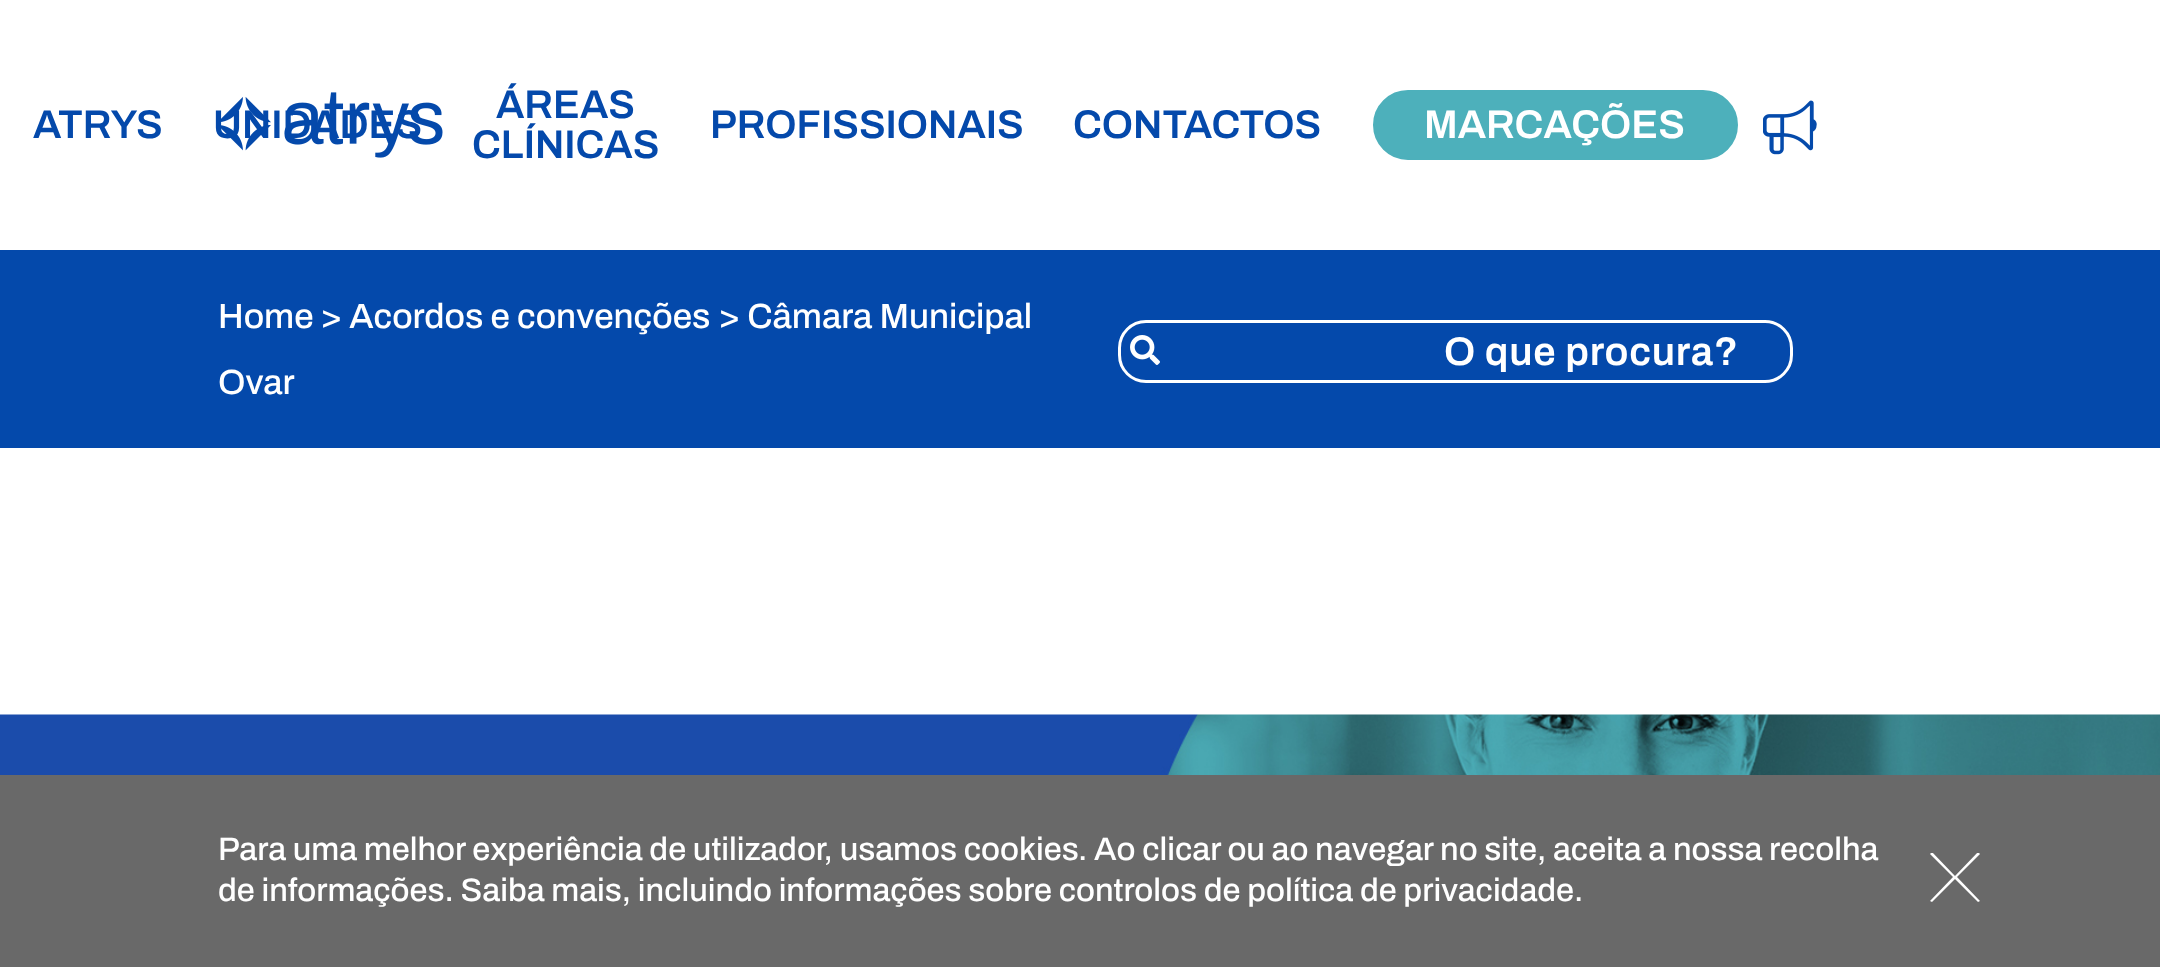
<svg xmlns="http://www.w3.org/2000/svg" width="2160" height="967">
<style>
.a{font:600 40px Archivo;fill:#0449ab}
.b{font:600 40px Archivo;fill:#fff}
.c{font:500 35px Archivo;fill:#fff}
.d{font:600 40px Archivo;letter-spacing:0.75px;fill:#fff}
.e{font:500 32.5px Archivo;fill:#fff}
</style>
<defs>
<clipPath id="clip1"><path d="M1930 853h50v50H1930z"/></clipPath>
</defs>
<rect width="100%" height="100%" fill="#fff"/>
<rect fill="#4db0bb" stroke="#4db0bb" stroke-width="3" x="1374.5" y="91.5" width="362" height="67" rx="33.5"/>
<image href="1.png" x="1763" y="100" width="54" height="55"/>
<image href="2.png" x="218" y="92" width="225" height="66"/>
<path fill="#0449ab" d="M0 250h2160v198H0z"/>
<rect fill="none" stroke="#fff" stroke-width="3" x="1119.5" y="321.5" width="672" height="60" rx="26.5"/>
<image href="3.png" x="1130" y="335" width="30" height="30"/>
<image href="4.png" x="0" y="714" width="2160" height="61"/>
<path fill="#696969" d="M0 775h2160v192H0z"/>
<g clip-path="url(#clip1)">
<path fill="#fff" d="M1980 854l-2-2l-23 24l-23-24l-2 2l23 23l-23 24l2 1l23-23l23 23l2-1l-23-24z"/>
</g>
<text class="a" x="33" y="138">ATRYS</text>
<text class="a" x="213" y="138">UNIDADES</text>
<text class="a" x="496" y="118">ÁREAS</text>
<text class="a" x="472" y="158">CLÍNICAS</text>
<text class="a" x="710" y="138">PROFISSIONAIS</text>
<text class="a" x="1073" y="138">CONTACTOS</text>
<text class="b" x="1424" y="138">MARCAÇÕES</text>
<text class="c" x="218" y="328">Home</text>
<text class="c" x="320" y="328">&gt; Acordos e convenções</text>
<text class="c" x="718" y="328">&gt; Câmara Municipal</text>
<text class="c" x="218" y="394">Ovar</text>
<text class="d" x="1444" y="365">O que procura?</text>
<text class="e" x="218" y="860">Para uma melhor experiência de utilizador, usamos cookies</text>
<text class="e" x="1078" y="860">. Ao clicar ou ao navegar no site, aceita a nossa recolha</text>
<text class="e" x="218" y="901">de informações. Saiba mais, incluindo informações sobre controlos de política de privacidade</text>
<text class="e" x="1574" y="901">.</text>
</svg>
